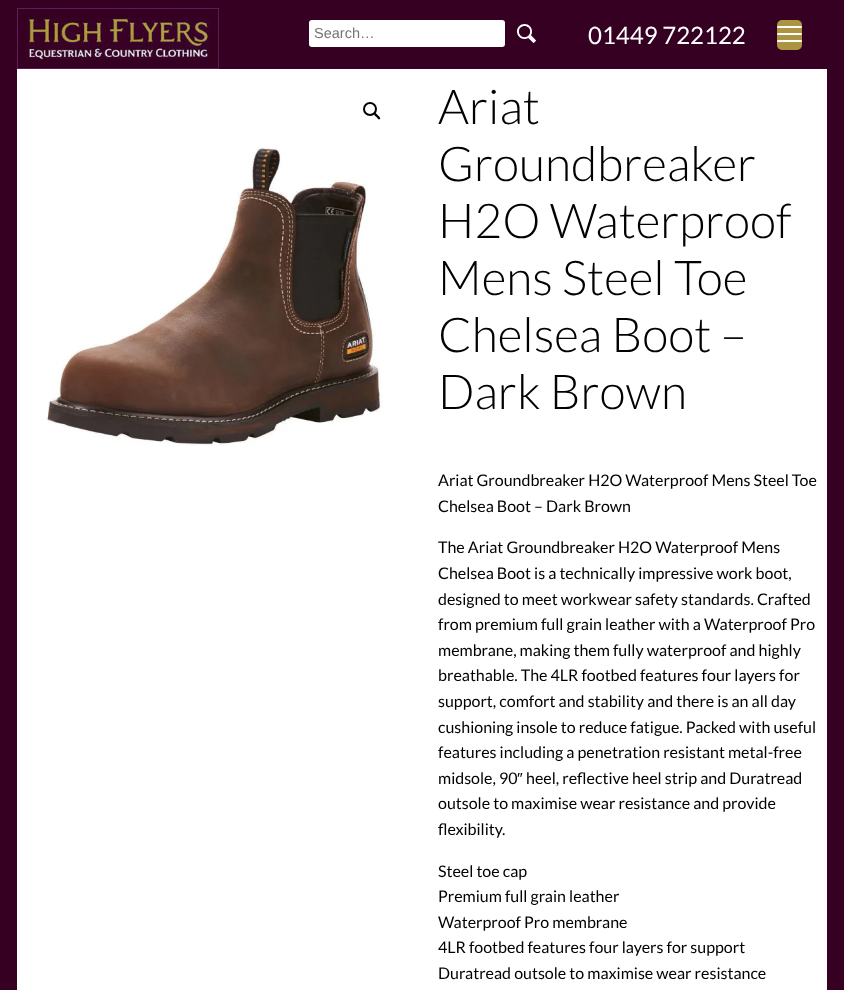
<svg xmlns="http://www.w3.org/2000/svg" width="844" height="990">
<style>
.a{font:14.5px Liberation Sans;fill:#757575}
.b{font:24px Lato;fill:#fff}
.c{font:300 48px Lato;fill:#000}
.d{font:16px Lato;fill:#000}
.e{font:16px Liberation Sans;fill:#000}
</style>
<rect width="100%" height="100%" fill="#360022"/>
<rect fill="#ad9442" x="777" y="20" width="25" height="30" rx="5"/>
<rect fill="#fff" x="777" y="33" width="25" height="2" rx="1"/>
<rect fill="#fff" x="777" y="26" width="25" height="2" rx="1"/>
<rect fill="#fff" x="777" y="40" width="25" height="2" rx="1"/>
<image href="1.png" x="17" y="8" width="202" height="61"/>
<rect fill="#fff" x="309" y="20" width="196" height="27" rx="3"/>
<image href="2.png" x="517" y="24" width="19" height="19"/>
<path fill="#fff" d="M17 69h810v921H17z"/>
<circle fill="none" stroke="#000" stroke-width="2" cx="370" cy="109" r="6"/>
<path fill="#000" d="M374.5 113.5c1-1.5 2.5 1.5 3.5 2c.5 .5 3 2.5 2 3.5c-1.5 1.5-3-1.5-3.5-2c-.5-.5-3.5-2.5-2-3.5z"/>
<image href="3.png" x="46" y="147" width="337" height="299"/>
<text class="a" x="314" y="38">Search…</text>
<text class="b" x="588" y="44">01449 722122</text>
<text class="c" x="438" y="124">Ariat</text>
<text class="c" x="438" y="181">Groundbreaker</text>
<text class="c" x="438" y="238">H2O Waterproof</text>
<text class="c" x="438" y="295">Mens Steel Toe</text>
<text class="c" x="438" y="352">Chelsea Boot –</text>
<text class="c" x="438" y="409">Dark Brown</text>
<text class="d" x="438" y="486">Ariat Groundbreaker H2O Waterproof Mens Steel Toe</text>
<text class="d" x="438" y="512">Chelsea Boot – Dark Brown</text>
<text class="d" x="438" y="553">The Ariat Groundbreaker H2O Waterproof Mens</text>
<text class="d" x="438" y="579">Chelsea Boot is a technically impressive work boot,</text>
<text class="d" x="438" y="605">designed to meet workwear safety standards. Crafted</text>
<text class="d" x="438" y="630">from premium full grain leather with a Waterproof Pro</text>
<text class="d" x="438" y="656">membrane, making them fully waterproof and highly</text>
<text class="d" x="438" y="681">breathable. The 4LR footbed features four layers for</text>
<text class="d" x="438" y="707">support, comfort and stability and there is an all day</text>
<text class="d" x="438" y="733">cushioning insole to reduce fatigue. Packed with useful</text>
<text class="d" x="438" y="758">features including a penetration resistant metal-free</text>
<text class="d" x="438" y="784">midsole, 90</text>
<text class="e" x="517" y="784">″</text>
<text class="d" x="526" y="784">heel, reflective heel strip and Duratread</text>
<text class="d" x="438" y="809">outsole to maximise wear resistance and provide</text>
<text class="d" x="438" y="835">flexibility.</text>
<text class="d" x="438" y="877">Steel toe cap</text>
<text class="d" x="438" y="902">Premium full grain leather</text>
<text class="d" x="438" y="928">Waterproof Pro membrane</text>
<text class="d" x="438" y="953">4LR footbed features four layers for support</text>
<text class="d" x="438" y="979">Duratread outsole to maximise wear resistance</text>
</svg>
